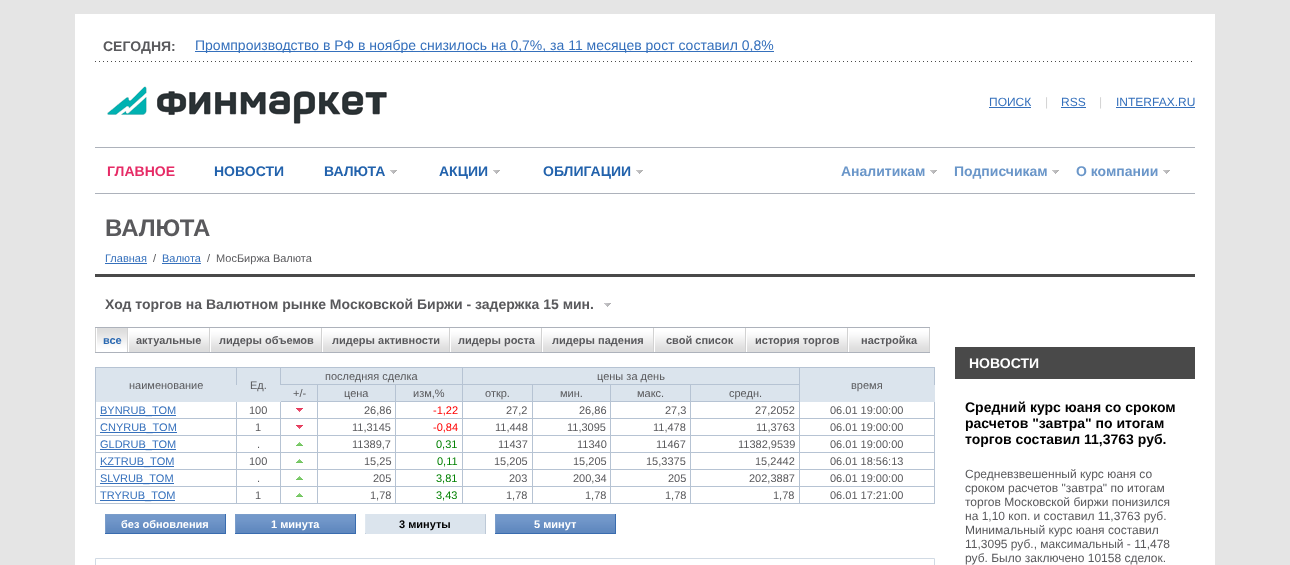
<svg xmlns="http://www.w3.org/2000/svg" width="1290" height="565">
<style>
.a{font:bold 14px Liberation Sans;fill:#59595c}
.b{font:14px Liberation Sans;fill:#3570bc}
.c{font:12px Liberation Sans;fill:#3570bc}
.d{font:12px Liberation Sans;fill:#d2d2d2}
.e{font:bold 14px Liberation Sans;fill:#e62b66}
.f{font:bold 14px Liberation Sans;fill:#2262ac}
.g{font:bold 14px Liberation Sans;fill:#6a96c9}
.h{font:bold 24px Liberation Sans;fill:#59595c}
.i{font:11px Liberation Sans;fill:#3570bc}
.j{font:11px Liberation Sans;fill:#59595c}
.k{font:bold 11px Liberation Sans;fill:#2b69b2}
.l{font:bold 11px Liberation Sans;fill:#59595c}
.m{font:11px Liberation Sans;fill:#f00}
.n{font:11px Liberation Sans;fill:#008000}
.o{font:bold 11px Liberation Sans;fill:#fff}
.p{font:bold 11px Liberation Sans;fill:#000}
.q{font:bold 14px Liberation Sans;fill:#fff}
.r{font:bold 14px Liberation Sans;fill:#000}
.s{font:12px Liberation Sans;fill:#59595c}
</style>
<rect width="100%" height="100%" fill="#e5e5e5"/>
<path fill="#fff" d="M75 14h1140v551H75z"/>
<path fill="#3570bc" d="M195 51h579v1H195z"/>
<image href="1.png" x="95" y="61" width="1097" height="1"/>
<image href="2.png" x="107" y="86" width="280" height="38"/>
<path fill="#3570bc" d="M989 107h42v1H989z"/>
<path fill="#3570bc" d="M1061 107h25v1H1061z"/>
<path fill="#3570bc" d="M1116 107h79v1H1116z"/>
<path fill="#adb2bb" d="M95 147h1100v1H95z"/>
<image href="3.png" x="390" y="170" width="7" height="4"/>
<image href="3.png" x="493" y="170" width="7" height="4"/>
<image href="3.png" x="636" y="170" width="7" height="4"/>
<image href="3.png" x="930" y="170" width="7" height="4"/>
<image href="3.png" x="1052" y="170" width="7" height="4"/>
<image href="3.png" x="1163" y="170" width="7" height="4"/>
<path fill="#adb2bb" d="M95 193h1100v1H95z"/>
<path fill="#3570bc" d="M105 263h42v1H105z"/>
<path fill="#3570bc" d="M162 263h39v1H162z"/>
<path fill="#494949" d="M95 274h1100v3H95z"/>
<image href="4.png" x="604" y="303" width="7" height="4"/>
<image href="5.png" x="95" y="327" width="2" height="26"/>
<image href="6.png" x="97" y="327" width="30" height="26"/>
<image href="5.png" x="127" y="327" width="2" height="26"/>
<image href="7.png" x="129" y="327" width="80" height="26"/>
<image href="5.png" x="209" y="327" width="2" height="26"/>
<image href="8.png" x="211" y="327" width="110" height="26"/>
<image href="5.png" x="321" y="327" width="2" height="26"/>
<image href="9.png" x="323" y="327" width="126" height="26"/>
<image href="5.png" x="449" y="327" width="2" height="26"/>
<image href="10.png" x="451" y="327" width="90" height="26"/>
<image href="5.png" x="541" y="327" width="2" height="26"/>
<image href="8.png" x="543" y="327" width="110" height="26"/>
<image href="5.png" x="653" y="327" width="2" height="26"/>
<image href="10.png" x="655" y="327" width="90" height="26"/>
<image href="5.png" x="745" y="327" width="2" height="26"/>
<image href="11.png" x="747" y="327" width="100" height="26"/>
<image href="5.png" x="847" y="327" width="2" height="26"/>
<image href="7.png" x="849" y="327" width="80" height="26"/>
<image href="12.png" x="929" y="327" width="1" height="26"/>
<path fill="#b6c3d3" d="M95 367h840v1H95z"/>
<path fill="#b6c3d3" d="M95 367h1v137H95z"/>
<path fill="#dbe4ed" d="M96 368h838v17H96z"/>
<path fill="#b6c3d3" d="M462 368h1v17H462z"/>
<path fill="#b6c3d3" d="M281 384h182v1H281z"/>
<path fill="#b6c3d3" d="M799 368h1v17H799z"/>
<path fill="#b6c3d3" d="M463 384h337v1H463z"/>
<path fill="#b6c3d3" d="M236 368h1v17H236z"/>
<path fill="#b6c3d3" d="M280 368h1v17H280z"/>
<path fill="#b6c3d3" d="M934 368h1v17H934z"/>
<path fill="#dbe4ed" d="M96 385h839v17H96z"/>
<path fill="#b6c3d3" d="M317 385h1v119H317z"/>
<path fill="#b6c3d3" d="M281 401h37v1H281z"/>
<path fill="#b6c3d3" d="M395 385h1v119H395z"/>
<path fill="#b6c3d3" d="M318 401h78v1H318z"/>
<path fill="#b6c3d3" d="M462 385h1v119H462z"/>
<path fill="#b6c3d3" d="M396 401h67v1H396z"/>
<path fill="#b6c3d3" d="M532 385h1v119H532z"/>
<path fill="#b6c3d3" d="M463 401h70v1H463z"/>
<path fill="#b6c3d3" d="M610 385h1v119H610z"/>
<path fill="#b6c3d3" d="M533 401h78v1H533z"/>
<path fill="#b6c3d3" d="M690 385h1v119H690z"/>
<path fill="#b6c3d3" d="M611 401h80v1H611z"/>
<path fill="#b6c3d3" d="M799 385h1v119H799z"/>
<path fill="#b6c3d3" d="M691 401h109v1H691z"/>
<path fill="#b6c3d3" d="M236 402h1v102H236z"/>
<path fill="#b6c3d3" d="M96 418h141v1H96z"/>
<path fill="#3570bc" d="M100 415h76v1H100z"/>
<path fill="#b6c3d3" d="M280 402h1v102H280z"/>
<path fill="#b6c3d3" d="M237 418h563v1H237z"/>
<image href="13.png" x="296" y="408" width="7" height="4"/>
<path fill="#b6c3d3" d="M934 402h1v102H934z"/>
<path fill="#b6c3d3" d="M800 418h135v1H800z"/>
<path fill="#b6c3d3" d="M96 435h839v1H96z"/>
<path fill="#3570bc" d="M100 432h77v1H100z"/>
<image href="13.png" x="296" y="425" width="7" height="4"/>
<path fill="#b6c3d3" d="M96 452h839v1H96z"/>
<path fill="#3570bc" d="M100 449h76v1H100z"/>
<image href="14.png" x="296" y="442" width="7" height="4"/>
<path fill="#b6c3d3" d="M96 469h839v1H96z"/>
<path fill="#3570bc" d="M100 466h74v1H100z"/>
<image href="14.png" x="296" y="459" width="7" height="4"/>
<path fill="#b6c3d3" d="M96 486h839v1H96z"/>
<path fill="#3570bc" d="M100 483h74v1H100z"/>
<image href="14.png" x="296" y="476" width="7" height="4"/>
<path fill="#b6c3d3" d="M96 503h839v1H96z"/>
<path fill="#3570bc" d="M100 500h75v1H100z"/>
<image href="14.png" x="296" y="493" width="7" height="4"/>
<image href="15.png" x="105" y="514" width="120" height="20"/>
<path fill="#7b9dca" d="M105 515h1v18H105z"/>
<path fill="#396caf" d="M225 514h1v20H225z"/>
<image href="15.png" x="235" y="514" width="120" height="20"/>
<path fill="#7b9dca" d="M235 515h1v18H235z"/>
<path fill="#396caf" d="M355 514h1v20H355z"/>
<path fill="#dbe4ed" d="M366 514h119v20H366z"/>
<image href="16.png" x="365" y="514" width="1" height="20"/>
<image href="17.png" x="485" y="514" width="1" height="20"/>
<image href="15.png" x="495" y="514" width="120" height="20"/>
<path fill="#7b9dca" d="M495 515h1v18H495z"/>
<path fill="#396caf" d="M615 514h1v20H615z"/>
<path fill="none" stroke="#d1dae4" d="M95.5 558.5h839v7H95.5z"/>
<path fill="#494949" d="M955 347h240v32H955z"/>
<text class="a" x="103" y="51">СЕГОДНЯ:</text>
<text class="b" x="195" y="50">Промпроизводство в РФ в ноябре снизилось на 0,7%, за 11 месяцев рост составил 0,8%</text>
<text class="c" x="989" y="106">ПОИСК</text>
<text class="d" x="1045" y="106">|</text>
<text class="c" x="1061" y="106">RSS</text>
<text class="d" x="1099" y="106">|</text>
<text class="c" x="1116" y="106">INTERFAX.RU</text>
<text class="e" x="107" y="176">ГЛАВНОЕ</text>
<text class="f" x="214" y="176">НОВОСТИ</text>
<text class="f" x="324" y="176">ВАЛЮТА</text>
<text class="f" x="439" y="176">АКЦИИ</text>
<text class="f" x="543" y="176">ОБЛИГАЦИИ</text>
<text class="g" x="841" y="176">Аналитикам</text>
<text class="g" x="954" y="176">Подписчикам</text>
<text class="g" x="1076" y="176">О компании</text>
<text class="h" x="105" y="236">ВАЛЮТА</text>
<text class="i" x="105" y="262">Главная</text>
<text class="j" x="153" y="262">/</text>
<text class="i" x="162" y="262">Валюта</text>
<text class="j" x="207" y="262">/</text>
<text class="j" x="216" y="262">МосБиржа Валюта</text>
<text class="a" x="105" y="309">Ход торгов на Валютном рынке Московской Биржи - задержка 15 мин.</text>
<text class="k" x="103" y="344">все</text>
<text class="l" x="136" y="344">актуальные</text>
<text class="l" x="219" y="344">лидеры объемов</text>
<text class="l" x="332" y="344">лидеры активности</text>
<text class="l" x="458" y="344">лидеры роста</text>
<text class="l" x="552" y="344">лидеры падения</text>
<text class="l" x="666" y="344">свой список</text>
<text class="l" x="755" y="344">история торгов</text>
<text class="l" x="861" y="344">настройка</text>
<text class="j" x="325" y="380">последняя сделка</text>
<text class="j" x="597" y="380">цены за день</text>
<text class="j" x="129" y="389">наименование</text>
<text class="j" x="250" y="389">Ед.</text>
<text class="j" x="851" y="389">время</text>
<text class="j" x="293" y="397">+/-</text>
<text class="j" x="344" y="397">цена</text>
<text class="j" x="413" y="397">изм,%</text>
<text class="j" x="485" y="397">откр.</text>
<text class="j" x="560" y="397">мин.</text>
<text class="j" x="637" y="397">макс.</text>
<text class="j" x="729" y="397">средн.</text>
<text class="i" x="100" y="414">BYNRUB_TOM</text>
<text class="j" x="249" y="414">100</text>
<text class="j" x="364" y="414">26,86</text>
<text class="m" x="433" y="414">-1,22</text>
<text class="j" x="506" y="414">27,2</text>
<text class="j" x="579" y="414">26,86</text>
<text class="j" x="665" y="414">27,3</text>
<text class="j" x="755" y="414">27,2052</text>
<text class="j" x="830" y="414">06.01 19:00:00</text>
<text class="i" x="100" y="431">CNYRUB_TOM</text>
<text class="j" x="255" y="431">1</text>
<text class="j" x="352" y="431">11,3145</text>
<text class="m" x="433" y="431">-0,84</text>
<text class="j" x="495" y="431">11,448</text>
<text class="j" x="567" y="431">11,3095</text>
<text class="j" x="653" y="431">11,478</text>
<text class="j" x="756" y="431">11,3763</text>
<text class="j" x="830" y="431">06.01 19:00:00</text>
<text class="i" x="100" y="448">GLDRUB_TOM</text>
<text class="j" x="352" y="448">11389,7</text>
<text class="n" x="436" y="448">0,31</text>
<text class="j" x="498" y="448">11437</text>
<text class="j" x="577" y="448">11340</text>
<text class="j" x="656" y="448">11467</text>
<text class="j" x="738" y="448">11382,9539</text>
<text class="j" x="830" y="448">06.01 19:00:00</text>
<text class="j" x="257" y="448">.</text>
<text class="i" x="100" y="465">KZTRUB_TOM</text>
<text class="j" x="249" y="465">100</text>
<text class="j" x="364" y="465">15,25</text>
<text class="n" x="437" y="465">0,11</text>
<text class="j" x="494" y="465">15,205</text>
<text class="j" x="573" y="465">15,205</text>
<text class="j" x="646" y="465">15,3375</text>
<text class="j" x="755" y="465">15,2442</text>
<text class="j" x="830" y="465">06.01 18:56:13</text>
<text class="i" x="100" y="482">SLVRUB_TOM</text>
<text class="j" x="373" y="482">205</text>
<text class="n" x="436" y="482">3,81</text>
<text class="j" x="509" y="482">203</text>
<text class="j" x="573" y="482">200,34</text>
<text class="j" x="668" y="482">205</text>
<text class="j" x="749" y="482">202,3887</text>
<text class="j" x="830" y="482">06.01 19:00:00</text>
<text class="j" x="257" y="482">.</text>
<text class="i" x="100" y="499">TRYRUB_TOM</text>
<text class="j" x="255" y="499">1</text>
<text class="j" x="370" y="499">1,78</text>
<text class="n" x="436" y="499">3,43</text>
<text class="j" x="506" y="499">1,78</text>
<text class="j" x="585" y="499">1,78</text>
<text class="j" x="665" y="499">1,78</text>
<text class="j" x="773" y="499">1,78</text>
<text class="j" x="830" y="499">06.01 17:21:00</text>
<text class="o" x="121" y="528">без обновления</text>
<text class="o" x="271" y="528">1 минута</text>
<text class="p" x="399" y="528">3 минуты</text>
<text class="o" x="534" y="528">5 минут</text>
<text class="q" x="969" y="368">НОВОСТИ</text>
<text class="r" x="965" y="412">Средний курс юаня со сроком</text>
<text class="r" x="965" y="428">расчетов "завтра" по итогам</text>
<text class="r" x="965" y="444">торгов составил 11,3763 руб.</text>
<text class="s" x="965" y="478">Средневзвешенный курс юаня со</text>
<text class="s" x="965" y="492">сроком расчетов "завтра" по итогам</text>
<text class="s" x="965" y="506">торгов Московской биржи понизился</text>
<text class="s" x="965" y="520">на 1,10 коп. и составил 11,3763 руб.</text>
<text class="s" x="965" y="534">Минимальный курс юаня составил</text>
<text class="s" x="965" y="548">11,3095 руб., максимальный - 11,478</text>
<text class="s" x="965" y="562">руб. Было заключено 10158 сделок.</text>
</svg>
